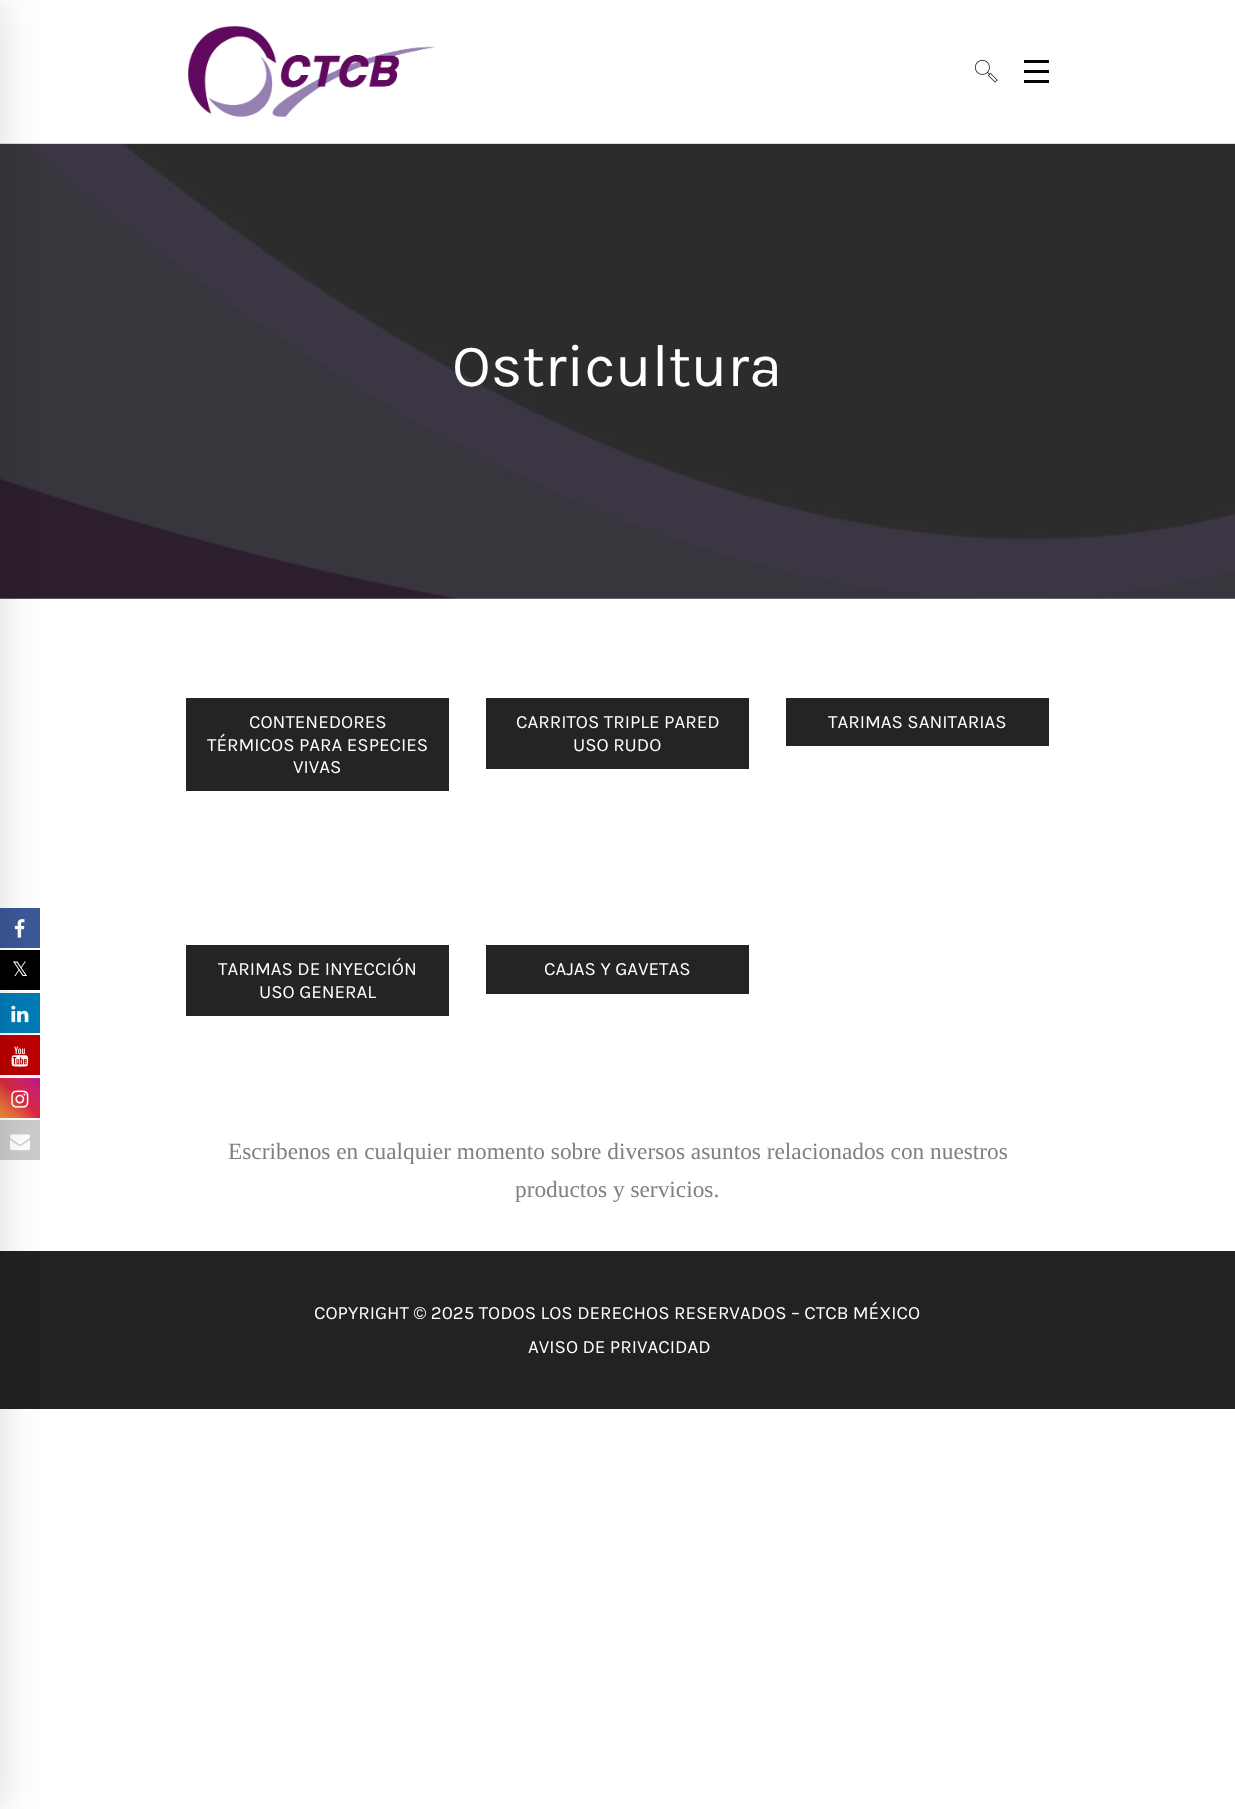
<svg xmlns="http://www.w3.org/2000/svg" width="1235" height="1809">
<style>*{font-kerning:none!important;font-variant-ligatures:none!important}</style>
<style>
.a{font:60px Karla;fill:#fff}
.b{font:18.75px Karla;fill:#fff}
.c{font:23.35px Liberation Serif;fill:#808080}
.d{font:20px DejaVu Sans;fill:#fff}
</style>
<defs>
<linearGradient id="g1" gradientUnits="userSpaceOnUse" x1="0" y1="1118" x2="40" y2="1078"><stop offset="0" stop-color="#f09433"/><stop offset="0.25" stop-color="#e6683c"/><stop offset="0.5" stop-color="#dc2743"/><stop offset="0.75" stop-color="#cc2366"/><stop offset="1" stop-color="#bc1888"/></linearGradient>
</defs>
<rect width="100%" height="100%" fill="#fff"/>
<path fill="#ddd" d="M0 143h1235v1H0z"/>
<image href="3.png" x="0" y="144" width="1235" height="455"/>
<path fill="#222" d="M0 1251h1235v158H0z"/>
<path fill="#3b5998" d="M0 908h40v40H0z"/>
<image href="4.png" x="14" y="919" width="11" height="19"/>
<path fill="#000" d="M0 950h40v40H0z"/>
<path fill="#007bb6" d="M0 993h40v40H0z"/>
<image href="5.png" x="11" y="1005" width="18" height="18"/>
<path fill="#b00" d="M0 1035h40v40H0z"/>
<image href="6.png" x="11" y="1046" width="18" height="21"/>
<path fill="url(#g1)" d="M0 1078h40v40H0z"/>
<image href="7.png" x="11" y="1090" width="18" height="18"/>
<path fill="#ccc" d="M0 1120h40v40H0z"/>
<image href="8.png" x="10" y="1134" width="20" height="17"/>
<path fill="#0000001f" filter="blur(18px)" d="M-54 1h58v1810H-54z"/>
<image href="1.png" x="188" y="25" width="248" height="92"/>
<image href="2.png" x="975" y="60" width="23" height="23"/>
<path fill="#0a0303" d="M1024 70h25v3H1024z"/>
<path fill="#0a0303" d="M1024 60h25v3H1024z"/>
<path fill="#0a0303" d="M1024 80h25v3H1024z"/>
<path fill="#242424" d="M186 698h263v93H186z"/>
<path fill="#242424" d="M486 698h263v71H486z"/>
<path fill="#242424" d="M786 698h263v48H786z"/>
<path fill="#242424" d="M186 945h263v71H186z"/>
<path fill="#242424" d="M486 945h263v49H486z"/>
<text class="a" x="452" y="386">Ostricultura</text>
<text class="b" x="249" y="728">CONTENEDORES</text>
<text class="b" x="207" y="751">TÉRMICOS PARA ESPECIES</text>
<text class="b" x="293" y="773">VIVAS</text>
<text class="b" x="516" y="728">CARRITOS TRIPLE PARED</text>
<text class="b" x="573" y="751">USO RUDO</text>
<text class="b" x="828" y="728">TARIMAS SANITARIAS</text>
<text class="b" x="218" y="975">TARIMAS DE INYECCIÓN</text>
<text class="b" x="259" y="998">USO GENERAL</text>
<text class="b" x="544" y="975">CAJAS Y GAVETAS</text>
<text class="c" x="228" y="1159">Escribenos en cualquier momento sobre diversos asuntos relacionados con nuestros</text>
<text class="c" x="515" y="1197">productos y servicios.</text>
<text class="b" x="314" y="1319">COPYRIGHT © 2025 TODOS LOS DERECHOS RESERVADOS – CTCB MÉXICO</text>
<text class="b" x="528" y="1353">AVISO DE PRIVACIDAD</text>
<text class="d" x="12" y="976">𝕏</text>
</svg>
